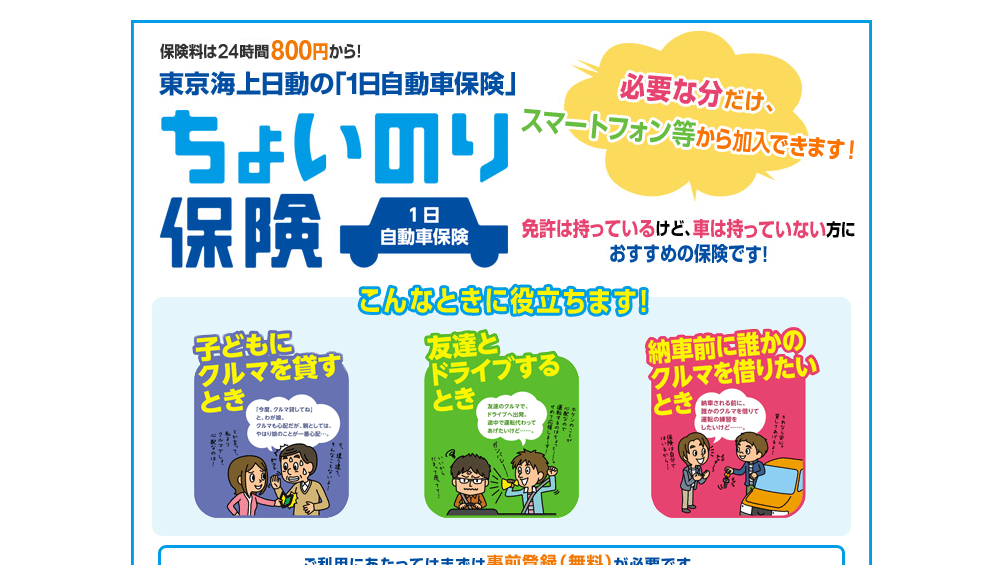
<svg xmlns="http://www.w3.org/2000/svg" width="1002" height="565">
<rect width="100%" height="100%" fill="#fff"/>
<image href="1.png" x="131" y="23" width="741" height="522"/>
<path fill="#009ce5" d="M131 20h741v3H131z"/>
<image href="2.png" x="158" y="26" width="704" height="245"/>
<image href="3.png" x="152" y="283" width="699" height="253"/>
<image href="4.png" x="131" y="545" width="741" height="20"/>
<image href="5.png" x="158" y="545" width="687" height="20"/>
</svg>
